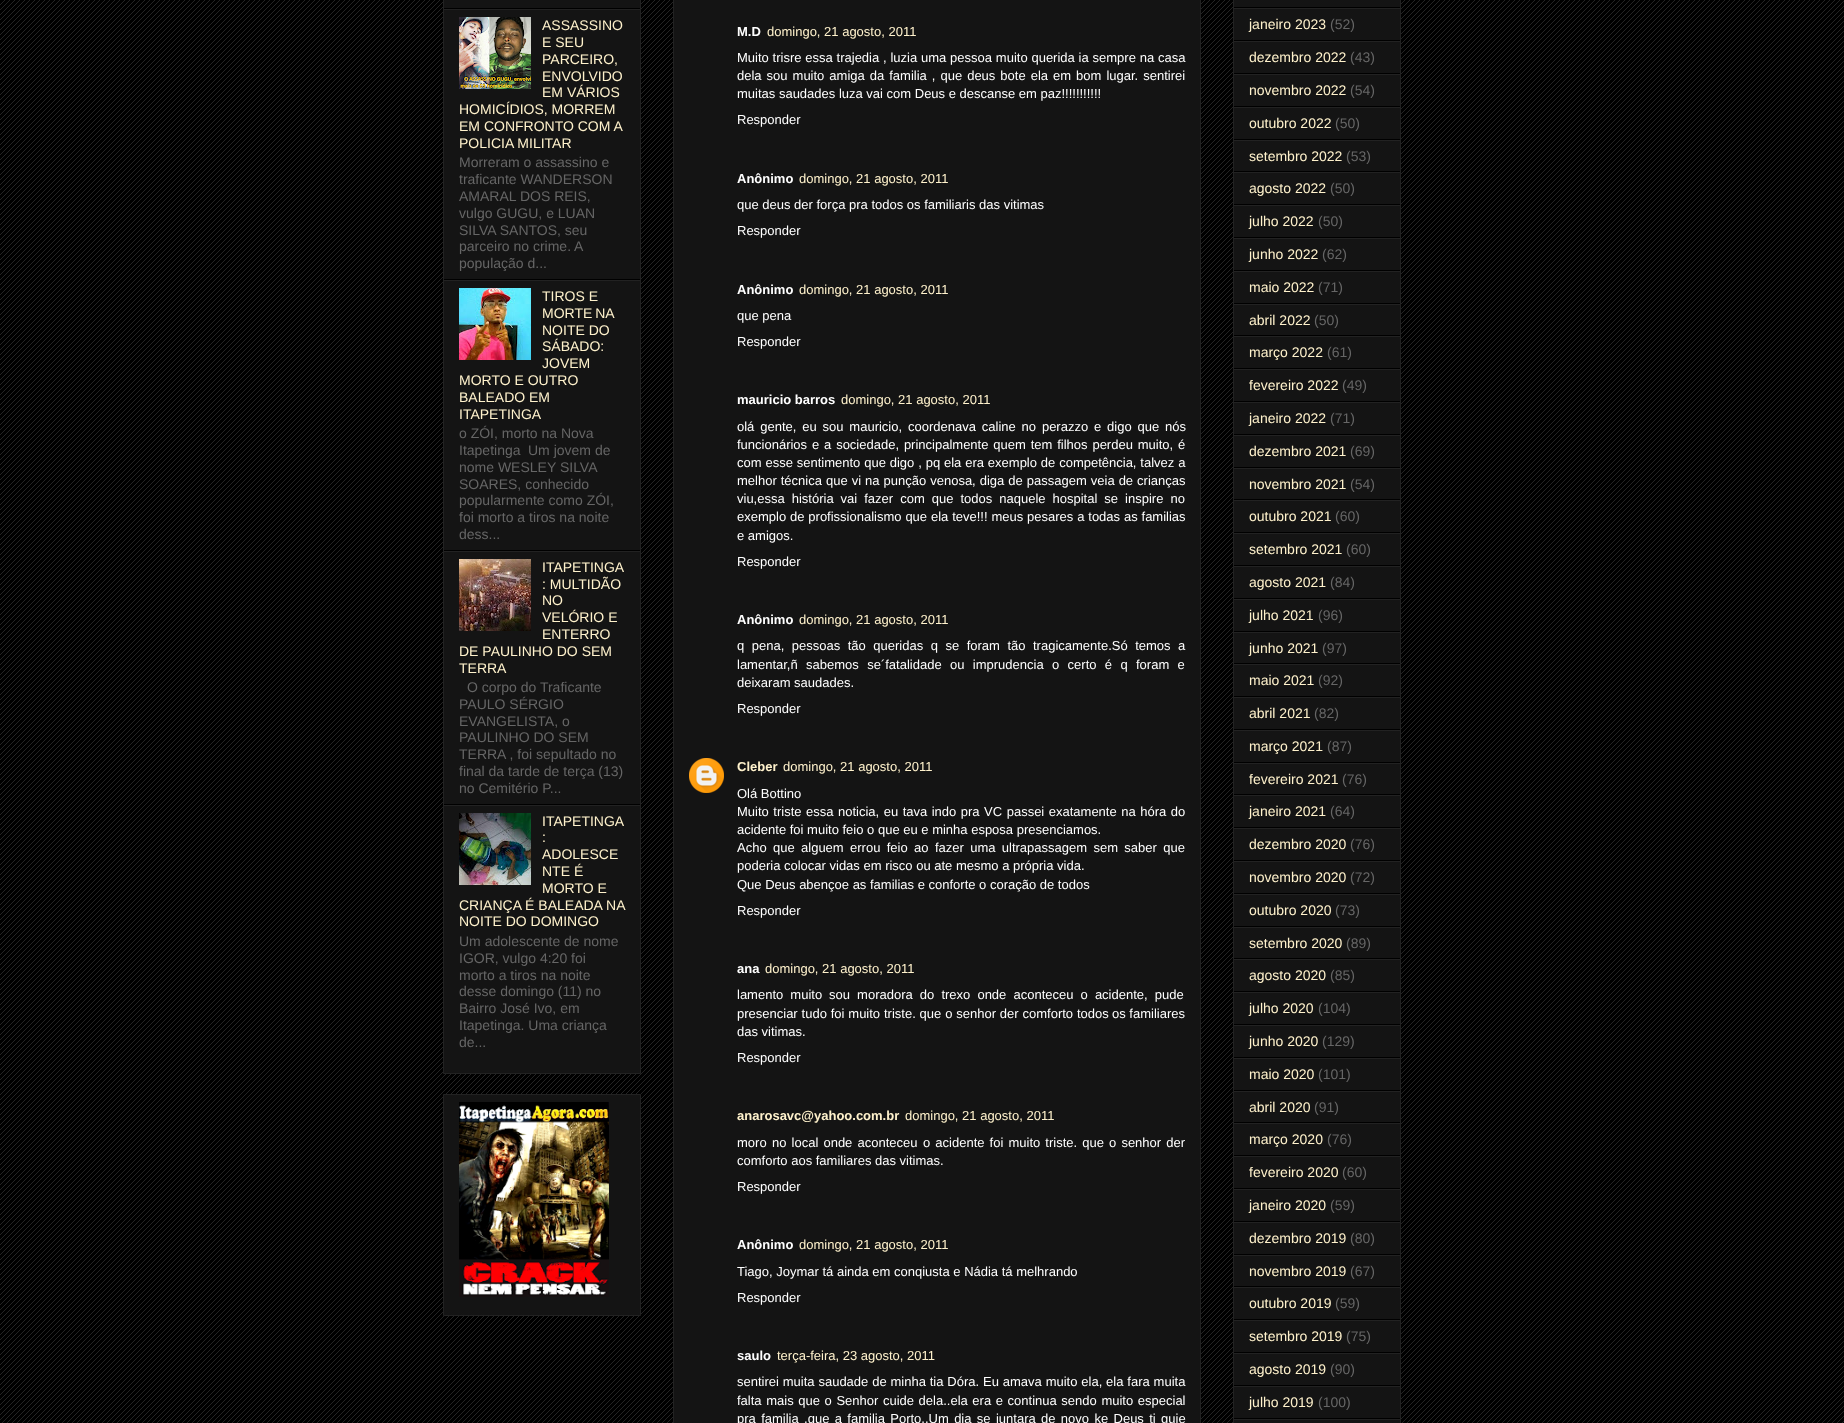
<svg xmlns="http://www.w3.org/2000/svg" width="1844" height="1423">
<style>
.a{font:14px Liberation Sans;fill:#fff2cc}
.b{font:14px Liberation Sans;fill:#666}
.c{font:bold 13px Liberation Sans;fill:#fff}
.d{font:13px Liberation Sans;fill:#fff2cc}
.e{font:13px Liberation Sans;fill:#fff}
.f{font:bold 13px Liberation Sans;fill:#fff2cc}
</style>
<rect width="100%" height="100%" fill="#000"/>
<image href="1.png" x="0" y="0" width="1844" height="1423"/>
<path fill="#141414" stroke="#222" d="M443.5 -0.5h197v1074H443.5z"/>
<path fill="#000" d="M444 8h196v1H444z"/>
<path fill="#222" d="M444 9h196v1H444z"/>
<path fill="#000" d="M444 279h196v1H444z"/>
<image href="2.png" x="459" y="17" width="72" height="72"/>
<path fill="#222" d="M444 280h196v1H444z"/>
<path fill="#000" d="M444 550h196v1H444z"/>
<image href="3.png" x="459" y="288" width="72" height="72"/>
<path fill="#222" d="M444 551h196v1H444z"/>
<path fill="#000" d="M444 804h196v1H444z"/>
<image href="4.png" x="459" y="559" width="72" height="72"/>
<path fill="#222" d="M444 805h196v1H444z"/>
<image href="5.png" x="459" y="813" width="72" height="72"/>
<path fill="#141414" stroke="#222" d="M443.5 1094.5h197v221H443.5z"/>
<image href="6.png" x="459" y="1102" width="150" height="195"/>
<path fill="#141414" stroke="#222" d="M673.5 -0.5h527v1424H673.5z"/>
<image href="7.png" x="689" y="758" width="35" height="35"/>
<path fill="#141414" stroke="#222" d="M1233.5 -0.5h167v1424H1233.5z"/>
<path fill="#000" d="M1234 7h166v1H1234z"/>
<path fill="#222" d="M1234 8h166v1H1234z"/>
<path fill="#000" d="M1234 40h166v1H1234z"/>
<path fill="#222" d="M1234 41h166v1H1234z"/>
<path fill="#000" d="M1234 73h166v1H1234z"/>
<path fill="#222" d="M1234 74h166v1H1234z"/>
<path fill="#000" d="M1234 106h166v1H1234z"/>
<path fill="#222" d="M1234 107h166v1H1234z"/>
<path fill="#000" d="M1234 139h166v1H1234z"/>
<path fill="#222" d="M1234 140h166v1H1234z"/>
<path fill="#000" d="M1234 171h166v1H1234z"/>
<path fill="#222" d="M1234 172h166v1H1234z"/>
<path fill="#000" d="M1234 204h166v1H1234z"/>
<path fill="#222" d="M1234 205h166v1H1234z"/>
<path fill="#000" d="M1234 237h166v1H1234z"/>
<path fill="#222" d="M1234 238h166v1H1234z"/>
<path fill="#000" d="M1234 270h166v1H1234z"/>
<path fill="#222" d="M1234 271h166v1H1234z"/>
<path fill="#000" d="M1234 303h166v1H1234z"/>
<path fill="#222" d="M1234 304h166v1H1234z"/>
<path fill="#000" d="M1234 335h166v1H1234z"/>
<path fill="#222" d="M1234 336h166v1H1234z"/>
<path fill="#000" d="M1234 368h166v1H1234z"/>
<path fill="#222" d="M1234 369h166v1H1234z"/>
<path fill="#000" d="M1234 401h166v1H1234z"/>
<path fill="#222" d="M1234 402h166v1H1234z"/>
<path fill="#000" d="M1234 434h166v1H1234z"/>
<path fill="#222" d="M1234 435h166v1H1234z"/>
<path fill="#000" d="M1234 467h166v1H1234z"/>
<path fill="#222" d="M1234 468h166v1H1234z"/>
<path fill="#000" d="M1234 499h166v1H1234z"/>
<path fill="#222" d="M1234 500h166v1H1234z"/>
<path fill="#000" d="M1234 532h166v1H1234z"/>
<path fill="#222" d="M1234 533h166v1H1234z"/>
<path fill="#000" d="M1234 565h166v1H1234z"/>
<path fill="#222" d="M1234 566h166v1H1234z"/>
<path fill="#000" d="M1234 598h166v1H1234z"/>
<path fill="#222" d="M1234 599h166v1H1234z"/>
<path fill="#000" d="M1234 631h166v1H1234z"/>
<path fill="#222" d="M1234 632h166v1H1234z"/>
<path fill="#000" d="M1234 663h166v1H1234z"/>
<path fill="#222" d="M1234 664h166v1H1234z"/>
<path fill="#000" d="M1234 696h166v1H1234z"/>
<path fill="#222" d="M1234 697h166v1H1234z"/>
<path fill="#000" d="M1234 729h166v1H1234z"/>
<path fill="#222" d="M1234 730h166v1H1234z"/>
<path fill="#000" d="M1234 762h166v1H1234z"/>
<path fill="#222" d="M1234 763h166v1H1234z"/>
<path fill="#000" d="M1234 794h166v1H1234z"/>
<path fill="#222" d="M1234 795h166v1H1234z"/>
<path fill="#000" d="M1234 827h166v1H1234z"/>
<path fill="#222" d="M1234 828h166v1H1234z"/>
<path fill="#000" d="M1234 860h166v1H1234z"/>
<path fill="#222" d="M1234 861h166v1H1234z"/>
<path fill="#000" d="M1234 893h166v1H1234z"/>
<path fill="#222" d="M1234 894h166v1H1234z"/>
<path fill="#000" d="M1234 926h166v1H1234z"/>
<path fill="#222" d="M1234 927h166v1H1234z"/>
<path fill="#000" d="M1234 958h166v1H1234z"/>
<path fill="#222" d="M1234 959h166v1H1234z"/>
<path fill="#000" d="M1234 991h166v1H1234z"/>
<path fill="#222" d="M1234 992h166v1H1234z"/>
<path fill="#000" d="M1234 1024h166v1H1234z"/>
<path fill="#222" d="M1234 1025h166v1H1234z"/>
<path fill="#000" d="M1234 1057h166v1H1234z"/>
<path fill="#222" d="M1234 1058h166v1H1234z"/>
<path fill="#000" d="M1234 1090h166v1H1234z"/>
<path fill="#222" d="M1234 1091h166v1H1234z"/>
<path fill="#000" d="M1234 1122h166v1H1234z"/>
<path fill="#222" d="M1234 1123h166v1H1234z"/>
<path fill="#000" d="M1234 1155h166v1H1234z"/>
<path fill="#222" d="M1234 1156h166v1H1234z"/>
<path fill="#000" d="M1234 1188h166v1H1234z"/>
<path fill="#222" d="M1234 1189h166v1H1234z"/>
<path fill="#000" d="M1234 1221h166v1H1234z"/>
<path fill="#222" d="M1234 1222h166v1H1234z"/>
<path fill="#000" d="M1234 1254h166v1H1234z"/>
<path fill="#222" d="M1234 1255h166v1H1234z"/>
<path fill="#000" d="M1234 1286h166v1H1234z"/>
<path fill="#222" d="M1234 1287h166v1H1234z"/>
<path fill="#000" d="M1234 1319h166v1H1234z"/>
<path fill="#222" d="M1234 1320h166v1H1234z"/>
<path fill="#000" d="M1234 1352h166v1H1234z"/>
<path fill="#222" d="M1234 1353h166v1H1234z"/>
<path fill="#000" d="M1234 1385h166v1H1234z"/>
<path fill="#222" d="M1234 1386h166v1H1234z"/>
<path fill="#000" d="M1234 1418h166v1H1234z"/>
<path fill="#222" d="M1234 1419h166v1H1234z"/>
<text class="a" x="542" y="30">ASSASSINO</text>
<text class="a" x="542" y="47">E SEU</text>
<text class="a" x="542" y="64">PARCEIRO,</text>
<text class="a" x="542" y="81">ENVOLVIDO</text>
<text class="a" x="542" y="97">EM VÁRIOS</text>
<text class="a" x="459" y="114">HOMICÍDIOS, MORREM</text>
<text class="a" x="459" y="131">EM CONFRONTO COM A</text>
<text class="a" x="459" y="148">POLICIA MILITAR</text>
<text class="b" x="459" y="167">Morreram o assassino e</text>
<text class="b" x="459" y="184">traficante WANDERSON</text>
<text class="b" x="459" y="201">AMARAL DOS REIS,</text>
<text class="b" x="459" y="218">vulgo GUGU, e LUAN</text>
<text class="b" x="459" y="235">SILVA SANTOS, seu</text>
<text class="b" x="459" y="251">parceiro no crime.</text>
<text class="b" x="574" y="251">A</text>
<text class="b" x="459" y="268">população d...</text>
<text class="a" x="542" y="301">TIROS E</text>
<text class="a" x="542" y="318" word-spacing="-1">MORTE NA</text>
<text class="a" x="542" y="335">NOITE DO</text>
<text class="a" x="542" y="351">SÁBADO:</text>
<text class="a" x="542" y="368">JOVEM</text>
<text class="a" x="459" y="385">MORTO E OUTRO</text>
<text class="a" x="459" y="402">BALEADO EM</text>
<text class="a" x="459" y="419">ITAPETINGA</text>
<text class="b" x="459" y="438">o ZÓI, morto na Nova</text>
<text class="b" x="459" y="455">Itapetinga</text>
<text class="b" x="528" y="455">Um jovem de</text>
<text class="b" x="459" y="472">nome WESLEY SILVA</text>
<text class="b" x="459" y="489">SOARES, conhecido</text>
<text class="b" x="459" y="505">popularmente como ZÓI,</text>
<text class="b" x="459" y="522">foi morto a tiros na noite</text>
<text class="b" x="459" y="539">dess...</text>
<text class="a" x="542" y="572">ITAPETINGA</text>
<text class="a" x="542" y="589">: MULTIDÃO</text>
<text class="a" x="542" y="605">NO</text>
<text class="a" x="542" y="622">VELÓRIO E</text>
<text class="a" x="542" y="639">ENTERRO</text>
<text class="a" x="459" y="656">DE PAULINHO DO SEM</text>
<text class="a" x="459" y="673">TERRA</text>
<text class="b" x="467" y="692">O corpo do Traficante</text>
<text class="b" x="459" y="709">PAULO SÉRGIO</text>
<text class="b" x="459" y="726">EVANGELISTA, o</text>
<text class="b" x="459" y="742">PAULINHO DO SEM</text>
<text class="b" x="459" y="759">TERRA , foi sepultado no</text>
<text class="b" x="459" y="776">final da tarde de terça (13)</text>
<text class="b" x="459" y="793">no Cemitério P...</text>
<text class="a" x="542" y="826">ITAPETINGA</text>
<text class="a" x="542" y="842">:</text>
<text class="a" x="542" y="859">ADOLESCE</text>
<text class="a" x="542" y="876">NTE É</text>
<text class="a" x="542" y="893">MORTO E</text>
<text class="a" x="459" y="910">CRIANÇA É BALEADA NA</text>
<text class="a" x="459" y="926">NOITE DO DOMINGO</text>
<text class="b" x="459" y="946">Um adolescente de nome</text>
<text class="b" x="459" y="963">IGOR, vulgo 4:20 foi</text>
<text class="b" x="459" y="980">morto a tiros na noite</text>
<text class="b" x="459" y="996">desse domingo (11) no</text>
<text class="b" x="459" y="1013">Bairro José Ivo, em</text>
<text class="b" x="459" y="1030">Itapetinga. Uma criança</text>
<text class="b" x="459" y="1047">de...</text>
<text class="c" x="737" y="36">M.D</text>
<text class="d" x="767" y="36">domingo, 21 agosto, 2011</text>
<text class="e" x="737" y="62" word-spacing="0.2">Muito trisre essa trajedia , luzia uma pessoa muito querida ia sempre na casa</text>
<text class="e" x="737" y="80" word-spacing="1.4">dela sou muito amiga da familia , que deus bote ela em bom lugar. sentirei</text>
<text class="e" x="737" y="98">muitas saudades luza vai com Deus e descanse em paz!!!!!!!!!!!</text>
<text class="e" x="737" y="124">Responder</text>
<text class="c" x="737" y="183">Anônimo</text>
<text class="d" x="799" y="183">domingo, 21 agosto, 2011</text>
<text class="e" x="737" y="209">que deus der força pra todos os familiaris das vitimas</text>
<text class="e" x="737" y="235">Responder</text>
<text class="c" x="737" y="294">Anônimo</text>
<text class="d" x="799" y="294">domingo, 21 agosto, 2011</text>
<text class="e" x="737" y="320">que pena</text>
<text class="e" x="737" y="346">Responder</text>
<text class="c" x="737" y="404">mauricio barros</text>
<text class="d" x="841" y="404">domingo, 21 agosto, 2011</text>
<text class="e" x="737" y="431" word-spacing="2.25">olá gente, eu sou mauricio, coordenava caline no perazzo e digo que nós</text>
<text class="e" x="737" y="449" word-spacing="1.25">funcionários e a sociedade, principalmente quem tem filhos perdeu muito, é</text>
<text class="e" x="737" y="467" word-spacing="0.25">com esse sentimento que digo , pq ela era exemplo de competência, talvez a</text>
<text class="e" x="737" y="485" word-spacing="0.4">melhor técnica que vi na punção venosa, diga de passagem veia de crianças</text>
<text class="e" x="737" y="503" word-spacing="3.4">viu,essa história vai fazer com que todos naquele hospital se inspire no</text>
<text class="e" x="737" y="521" word-spacing="0.25">exemplo de profissionalismo que ela teve!!! meus pesares a todas as familias</text>
<text class="e" x="737" y="540">e amigos.</text>
<text class="e" x="737" y="566">Responder</text>
<text class="c" x="737" y="624">Anônimo</text>
<text class="d" x="799" y="624">domingo, 21 agosto, 2011</text>
<text class="e" x="737" y="650" word-spacing="3.9">q pena, pessoas tão queridas q se foram tão tragicamente.Só temos a</text>
<text class="e" x="737" y="669" word-spacing="4.75">lamentar,ñ sabemos se´fatalidade ou imprudencia o certo é q foram e</text>
<text class="e" x="737" y="687">deixaram saudades.</text>
<text class="e" x="737" y="713">Responder</text>
<text class="f" x="737" y="771">Cleber</text>
<text class="d" x="783" y="771">domingo, 21 agosto, 2011</text>
<text class="e" x="737" y="798">Olá Bottino</text>
<text class="e" x="737" y="816" word-spacing="0.9">Muito triste essa noticia, eu tava indo pra VC passei exatamente na hóra do</text>
<text class="e" x="737" y="834">acidente foi muito feio o que eu e minha esposa presenciamos.</text>
<text class="e" x="737" y="852" word-spacing="2.75">Acho que alguem errou feio ao fazer uma ultrapassagem sem saber que</text>
<text class="e" x="737" y="870">poderia colocar vidas em risco ou ate mesmo a própria vida.</text>
<text class="e" x="737" y="889">Que Deus abençoe as familias e conforte o coração de todos</text>
<text class="e" x="737" y="915">Responder</text>
<text class="c" x="737" y="973">ana</text>
<text class="d" x="765" y="973">domingo, 21 agosto, 2011</text>
<text class="e" x="737" y="999" word-spacing="3.5">lamento muito</text>
<text class="e" x="829" y="999" word-spacing="3.5">sou moradora do trexo onde aconteceu o acidente, pude</text>
<text class="e" x="737" y="1018" word-spacing="0.25">presenciar tudo foi muito triste. que o senhor der comforto todos</text>
<text class="e" x="1112" y="1018">os familiares</text>
<text class="e" x="737" y="1036">das vitimas.</text>
<text class="e" x="737" y="1062">Responder</text>
<text class="f" x="737" y="1120">anarosavc@yahoo.com.br</text>
<text class="d" x="905" y="1120">domingo, 21 agosto, 2011</text>
<text class="e" x="737" y="1147">moro</text>
<text class="e" x="772" y="1147" word-spacing="1.5">no local onde aconteceu</text>
<text class="e" x="923" y="1147" word-spacing="1.5">o acidente foi muito triste. que o senhor der</text>
<text class="e" x="737" y="1165">comforto aos familiares das vitimas.</text>
<text class="e" x="737" y="1191">Responder</text>
<text class="c" x="737" y="1249">Anônimo</text>
<text class="d" x="799" y="1249">domingo, 21 agosto, 2011</text>
<text class="e" x="737" y="1276">Tiago, Joymar tá ainda em conqiusta e Nádia tá melhrando</text>
<text class="e" x="737" y="1302">Responder</text>
<text class="c" x="737" y="1360">saulo</text>
<text class="d" x="777" y="1360">terça-feira, 23 agosto, 2011</text>
<text class="e" x="737" y="1386" word-spacing="0.25">sentirei muita saudade de minha tia Dóra. Eu amava muito ela, ela fara muita</text>
<text class="e" x="737" y="1405" word-spacing="1">falta mais que o Senhor cuide dela..ela era e continua sendo muito especial</text>
<text class="e" x="737" y="1423" word-spacing="1.75">pra familia ,que a familia Porto..Um dia se juntara de novo ke Deus ti guie</text>
<text class="a" x="1249" y="29">janeiro 2023</text>
<text class="b" x="1330" y="29">(52)</text>
<text class="a" x="1249" y="62">dezembro 2022</text>
<text class="b" x="1350" y="62">(43)</text>
<text class="a" x="1249" y="95">novembro 2022</text>
<text class="b" x="1350" y="95">(54)</text>
<text class="a" x="1249" y="128">outubro 2022</text>
<text class="b" x="1335" y="128">(50)</text>
<text class="a" x="1249" y="161">setembro 2022</text>
<text class="b" x="1346" y="161">(53)</text>
<text class="a" x="1249" y="193">agosto 2022</text>
<text class="b" x="1330" y="193">(50)</text>
<text class="a" x="1249" y="226">julho 2022</text>
<text class="b" x="1318" y="226">(50)</text>
<text class="a" x="1249" y="259">junho 2022</text>
<text class="b" x="1322" y="259">(62)</text>
<text class="a" x="1249" y="292">maio 2022</text>
<text class="b" x="1318" y="292">(71)</text>
<text class="a" x="1249" y="325">abril 2022</text>
<text class="b" x="1314" y="325">(50)</text>
<text class="a" x="1249" y="357">março 2022</text>
<text class="b" x="1327" y="357">(61)</text>
<text class="a" x="1249" y="390">fevereiro 2022</text>
<text class="b" x="1342" y="390">(49)</text>
<text class="a" x="1249" y="423">janeiro 2022</text>
<text class="b" x="1330" y="423">(71)</text>
<text class="a" x="1249" y="456">dezembro 2021</text>
<text class="b" x="1350" y="456">(69)</text>
<text class="a" x="1249" y="489">novembro 2021</text>
<text class="b" x="1350" y="489">(54)</text>
<text class="a" x="1249" y="521">outubro 2021</text>
<text class="b" x="1335" y="521">(60)</text>
<text class="a" x="1249" y="554">setembro 2021</text>
<text class="b" x="1346" y="554">(60)</text>
<text class="a" x="1249" y="587">agosto 2021</text>
<text class="b" x="1330" y="587">(84)</text>
<text class="a" x="1249" y="620">julho 2021</text>
<text class="b" x="1318" y="620">(96)</text>
<text class="a" x="1249" y="653">junho 2021</text>
<text class="b" x="1322" y="653">(97)</text>
<text class="a" x="1249" y="685">maio 2021</text>
<text class="b" x="1318" y="685">(92)</text>
<text class="a" x="1249" y="718">abril 2021</text>
<text class="b" x="1314" y="718">(82)</text>
<text class="a" x="1249" y="751">março 2021</text>
<text class="b" x="1327" y="751">(87)</text>
<text class="a" x="1249" y="784">fevereiro 2021</text>
<text class="b" x="1342" y="784">(76)</text>
<text class="a" x="1249" y="816">janeiro 2021</text>
<text class="b" x="1330" y="816">(64)</text>
<text class="a" x="1249" y="849">dezembro 2020</text>
<text class="b" x="1350" y="849">(76)</text>
<text class="a" x="1249" y="882">novembro 2020</text>
<text class="b" x="1350" y="882">(72)</text>
<text class="a" x="1249" y="915">outubro 2020</text>
<text class="b" x="1335" y="915">(73)</text>
<text class="a" x="1249" y="948">setembro 2020</text>
<text class="b" x="1346" y="948">(89)</text>
<text class="a" x="1249" y="980">agosto 2020</text>
<text class="b" x="1330" y="980">(85)</text>
<text class="a" x="1249" y="1013">julho 2020</text>
<text class="b" x="1318" y="1013">(104)</text>
<text class="a" x="1249" y="1046">junho 2020</text>
<text class="b" x="1322" y="1046">(129)</text>
<text class="a" x="1249" y="1079">maio 2020</text>
<text class="b" x="1318" y="1079">(101)</text>
<text class="a" x="1249" y="1112">abril 2020</text>
<text class="b" x="1314" y="1112">(91)</text>
<text class="a" x="1249" y="1144">março 2020</text>
<text class="b" x="1327" y="1144">(76)</text>
<text class="a" x="1249" y="1177">fevereiro 2020</text>
<text class="b" x="1342" y="1177">(60)</text>
<text class="a" x="1249" y="1210">janeiro 2020</text>
<text class="b" x="1330" y="1210">(59)</text>
<text class="a" x="1249" y="1243">dezembro 2019</text>
<text class="b" x="1350" y="1243">(80)</text>
<text class="a" x="1249" y="1276">novembro 2019</text>
<text class="b" x="1350" y="1276">(67)</text>
<text class="a" x="1249" y="1308">outubro 2019</text>
<text class="b" x="1335" y="1308">(59)</text>
<text class="a" x="1249" y="1341">setembro 2019</text>
<text class="b" x="1346" y="1341">(75)</text>
<text class="a" x="1249" y="1374">agosto 2019</text>
<text class="b" x="1330" y="1374">(90)</text>
<text class="a" x="1249" y="1407">julho 2019</text>
<text class="b" x="1318" y="1407">(100)</text>
</svg>
